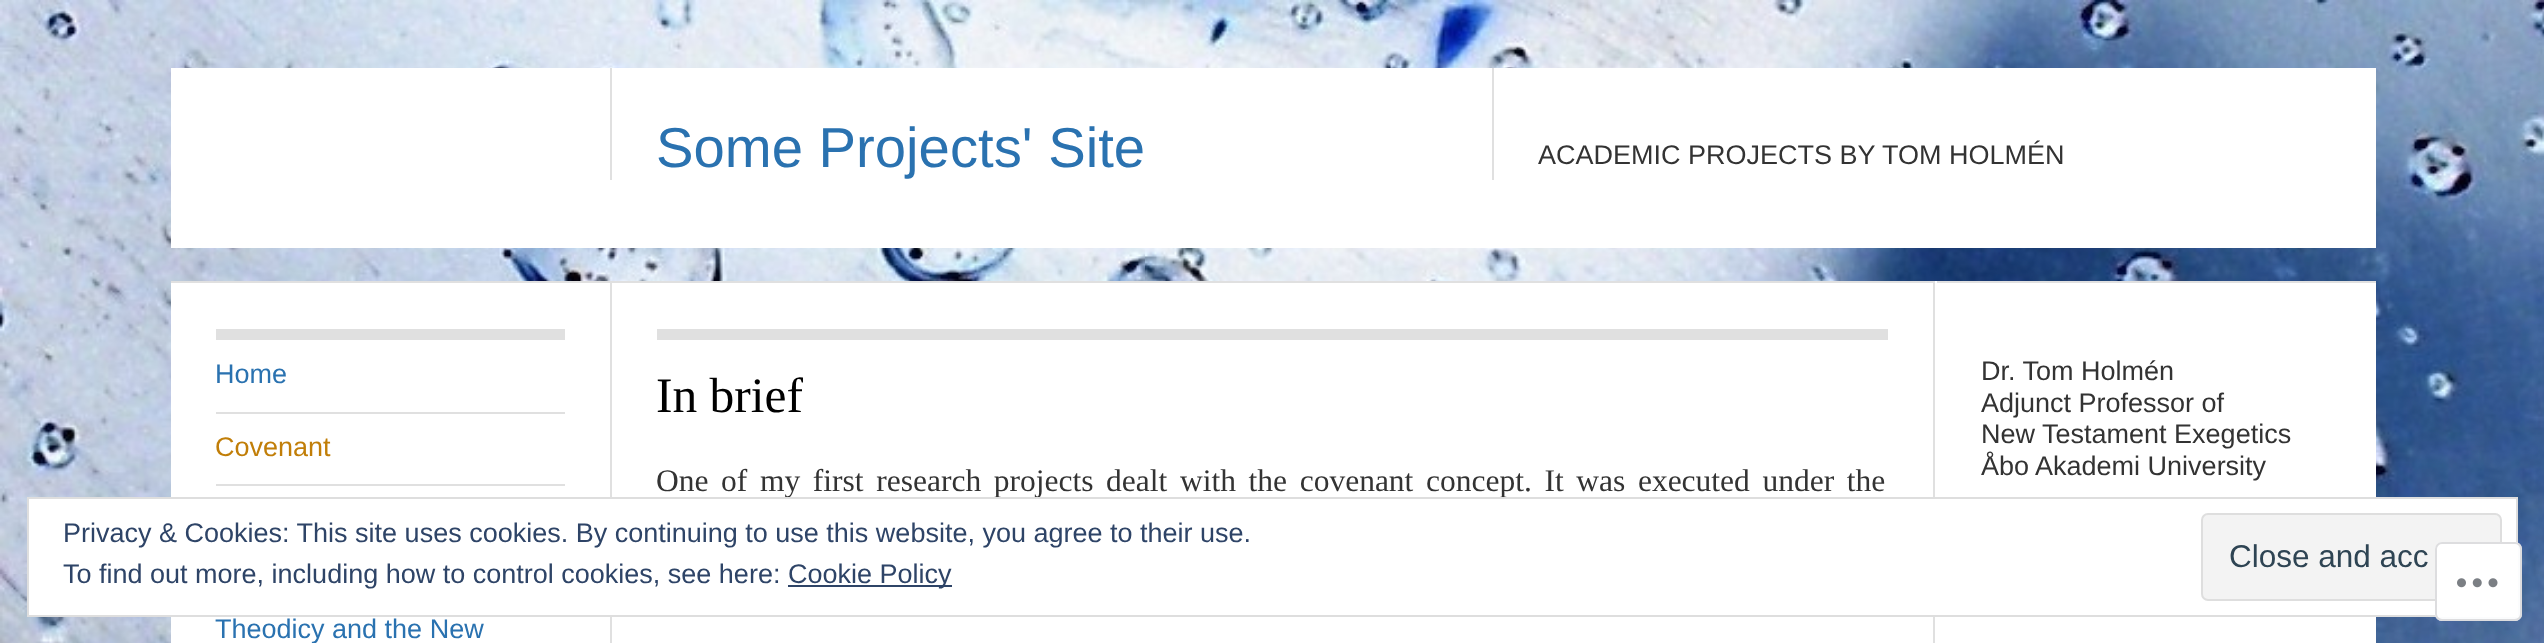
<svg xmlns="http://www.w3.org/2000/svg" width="2544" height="643">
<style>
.a{font:56.25px Liberation Sans;fill:#2a72b0}
.b{font:27px Liberation Sans;fill:#333}
.c{font:27px Liberation Sans;fill:#2a72b0}
.d{font:27px Liberation Sans;fill:#c17e08}
.e{font:49.5px Liberation Serif;fill:#000}
.f{font:31.5px Liberation Serif;fill:#333}
.g{font:27px Liberation Sans;fill:#2e4467}
.h{font:31.5px Liberation Sans;fill:#2e4453}
</style>
<rect width="100%" height="100%" fill="#fff"/>
<image href="1.png" x="0" y="0" width="2544" height="643"/>
<path fill="#fff" d="M171 68h2205v180H171z"/>
<path fill="#e0e0e0" d="M610 68h2v112H610z"/>
<path fill="#e0e0e0" d="M1492 68h2v112H1492z"/>
<path fill="#fff" d="M171 281h2205v362H171z"/>
<path fill="#e0e0e0" d="M171 281h1764v2H171z"/>
<path fill="#e0e0e0" d="M216 329h349v11H216z"/>
<path fill="#e0e0e0" d="M216 412h349v2H216z"/>
<path fill="#e0e0e0" d="M216 484h349v2H216z"/>
<path fill="#e0e0e0" d="M1933 281h2v362H1933z"/>
<path fill="#e0e0e0" d="M610 281h2v362H610z"/>
<path fill="#e0e0e0" d="M657 329h1231v11H657z"/>
<path fill="#e0e0e0" d="M1937 281h439v2H1937z"/>
<text class="a" x="656" y="167">Some Projects' Site</text>
<text class="b" x="1538" y="164">ACADEMIC PROJECTS BY TOM HOLMÉN</text>
<text class="c" x="215" y="383">Home</text>
<text class="d" x="215" y="456">Covenant</text>
<text class="c" x="215" y="638">Theodicy and the New</text>
<text class="e" x="656" y="412">In brief</text>
<text class="f" x="656" y="491" word-spacing="4.75">One of my first research projects dealt with the covenant concept. It was executed under the</text>
<text class="b" x="1981" y="380">Dr. Tom Holmén</text>
<text class="b" x="1981" y="412">Adjunct Professor of</text>
<text class="b" x="1981" y="443">New Testament Exegetics</text>
<text class="b" x="1981" y="475">Åbo Akademi University</text>
<path fill="#fff" stroke="#dedede" stroke-width="2" d="M28 498h2489v118H28z"/>
<text class="g" x="63" y="542">Privacy &amp; Cookies: This site uses cookies. By continuing to use this website, you agree to their use.</text>
<rect fill="#f3f3f3" stroke="#dedede" stroke-width="2" x="2202" y="514" width="299" height="86" rx="6"/>
<text class="h" x="2229" y="567">Close and acc</text>
<text class="g" x="63" y="583">To find out more, including how to control cookies, see here:</text>
<path fill="#2e4467" d="M788 585h164v2H788z"/>
<text class="g" x="788" y="583">Cookie Policy</text>
<rect fill="#fffffffa" x="2435" y="542" width="87" height="79" rx="7"/>
<rect fill="none" stroke="#dcdcdefa" stroke-width="2" x="2436" y="543" width="85" height="77" rx="6"/>
<image href="2.png" x="2457" y="578" width="41" height="10"/>
</svg>
